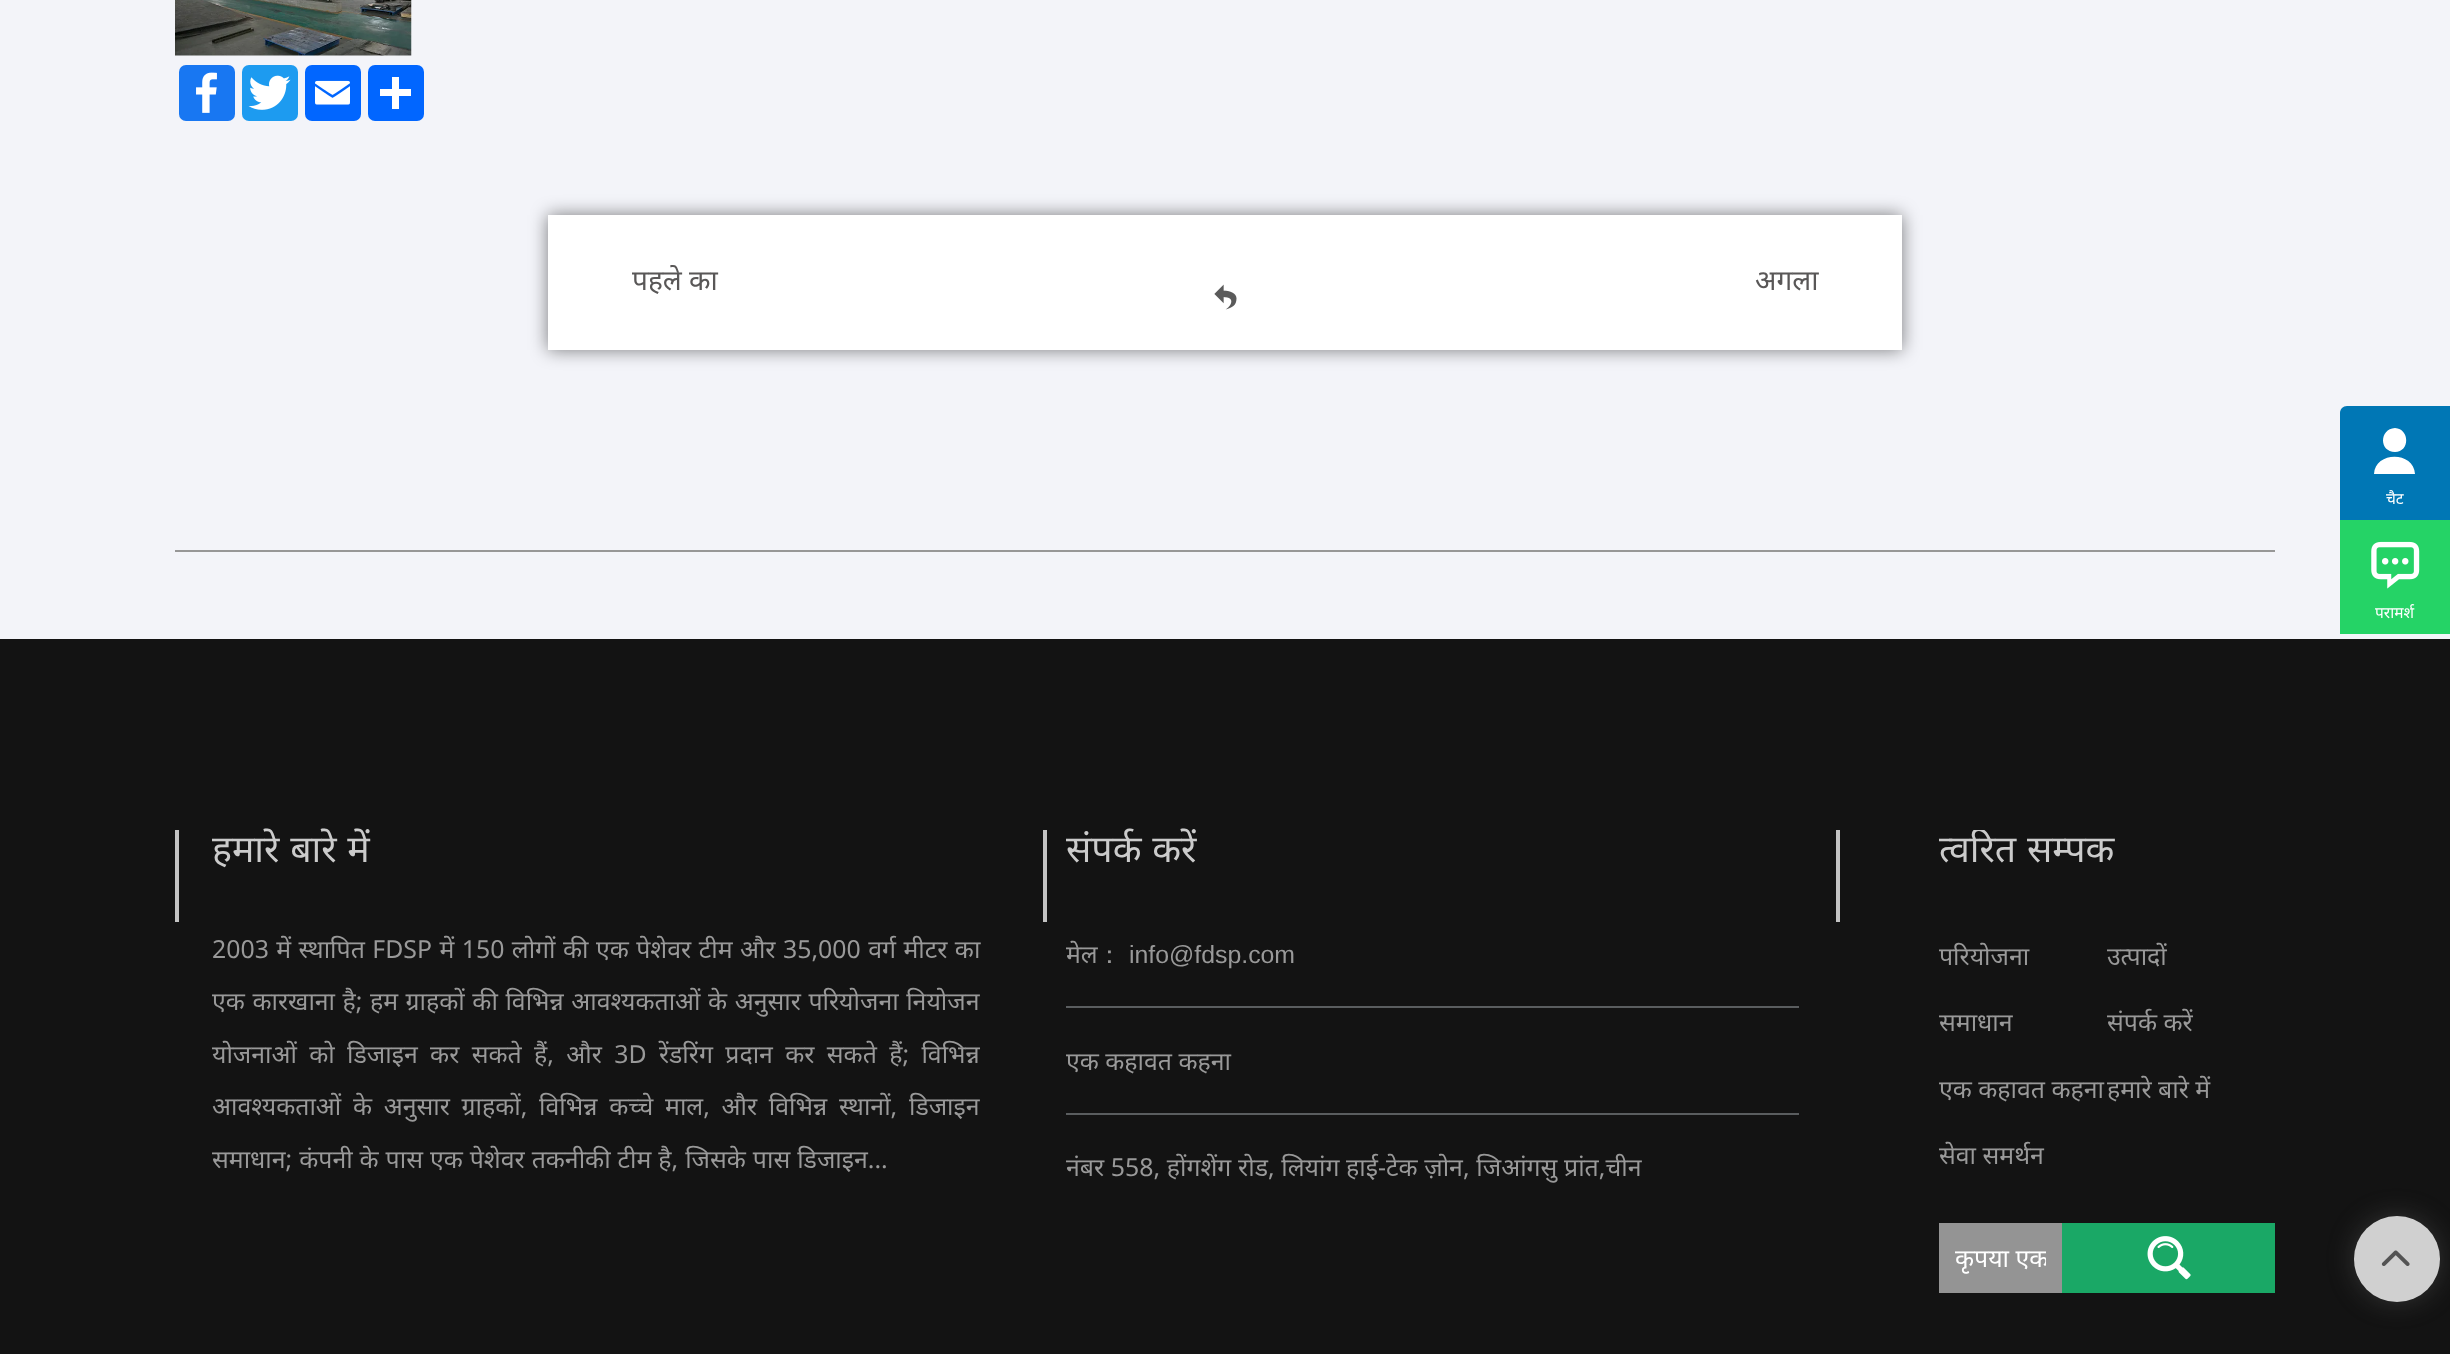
<svg xmlns="http://www.w3.org/2000/svg" width="2450" height="1354">
<style>
.a{font:28px Noto Sans;fill:#595757}
.b{font:15.5px Noto Sans;fill:#fff}
.c{font:37.5px Noto Sans;fill:#cbcbcb}
.d{font:24.85px Noto Sans;fill:#999}
.e{font:500 24.85px WenQuanYi Zen Hei;fill:#999}
.f{font:24.85px Liberation Sans;fill:#999}
.g{font:24.85px Noto Sans;fill:#fff}
</style>
<defs>
<clipPath id="clip1"><path d="M212 922h768v298H212z"/></clipPath>
<clipPath id="clip2"><path d="M1836 830h439v463H1836z"/></clipPath>
<clipPath id="clip3"><path d="M1939 922h336v266H1939z"/></clipPath>
<clipPath id="clip4"><path d="M1955 1241h91v33H1955z"/></clipPath>
</defs>
<rect width="100%" height="100%" fill="#f3f4f9"/>
<path fill="#979797" d="M175 550h2100v2H175z"/>
<image href="1.png" x="175" y="0" width="237" height="56"/>
<rect fill="#1877f2" x="179" y="65" width="56" height="56" rx="7"/>
<image href="2.png" x="196" y="72" width="21" height="41"/>
<rect fill="#1d9bf0" x="242" y="65" width="56" height="56" rx="7"/>
<image href="3.png" x="248" y="75" width="43" height="35"/>
<rect fill="#0166ff" x="305" y="65" width="56" height="56" rx="7"/>
<image href="4.png" x="315" y="80" width="35" height="25"/>
<rect fill="#0166ff" x="368" y="65" width="56" height="56" rx="7"/>
<path fill="#fff" d="M392 77h7v32H392z"/>
<path fill="#fff" d="M380 89h31v7H380z"/>
<path fill="#00000080" filter="blur(9px)" d="M548 215h1354v135H548z"/>
<path fill="#fff" d="M548 215h1354v135H548z"/>
<image href="5.png" x="1214" y="284" width="23" height="26"/>
<path fill="#0077b5" d="M2347 406h103v114h-110v-107c0-4 3-7 7-7z"/>
<path fill="#fff" d="M2395 428c15 1 15 24 0 24c-16 0-16-23 0-24zm20 46h-41c1-23 40-23 41 0z"/>
<path fill="#25d366" d="M2340 520h110v114H2340z"/>
<image href="6.png" x="2371" y="541" width="49" height="48"/>
<path fill="#131313" d="M0 639h2450v715H0z"/>
<path fill="#c3c3c3" d="M175 830h4v92H175z"/>
<path fill="#c3c3c3" d="M1043 830h4v92H1043z"/>
<path fill="#5a5d5f" d="M1066 1006h733v2H1066z"/>
<path fill="#5a5d5f" d="M1066 1113h733v2H1066z"/>
<path fill="#c3c3c3" d="M1836 830h4v92H1836z"/>
<path fill="#949494" d="M1939 1223h123v70H1939z"/>
<path fill="#1aa866" d="M2062 1223h213v70H2062z"/>
<image href="7.png" x="2147" y="1236" width="44" height="44"/>
<rect fill="#65656566" filter="blur(13px)" x="2354" y="1216" width="86" height="86" rx="43"/>
<circle fill="#d0d0d0" cx="2397" cy="1259" r="43"/>
<image href="8.png" x="2381" y="1250" width="29" height="16"/>
<text class="a" x="632" y="290">पहले का</text>
<text class="a" x="1755" y="290">अगला</text>
<text class="b" x="2386" y="504">चैट</text>
<text class="b" x="2375" y="618">परामर्श</text>
<text class="c" x="212" y="862" word-spacing="1">हमारे बारे में</text>
<text class="d" x="212" y="958" word-spacing="1">2003 में स्थापित FDSP में 150 लोगों की एक पेशेवर टीम और 35,000 वर्ग मीटर का</text>
<g clip-path="url(#clip1)">
<text class="d" x="212" y="1010" word-spacing="1.1">एक कारखाना है; हम ग्राहकों की विभिन्न आवश्यकताओं के अनुसार परियोजना नियोजन</text>
<text class="d" x="212" y="1063" word-spacing="5.9">योजनाओं को डिजाइन कर सकते हैं, और 3D रेंडरिंग प्रदान कर सकते हैं; विभिन्न</text>
<text class="d" x="212" y="1115" word-spacing="5.25">आवश्यकताओं के अनुसार ग्राहकों, विभिन्न कच्चे माल, और विभिन्न स्थानों, डिजाइन</text>
<text class="d" x="212" y="1168" word-spacing="0.5">समाधान; कंपनी के पास एक पेशेवर तकनीकी टीम है, जिसके पास डिजाइन...</text>
</g>
<text class="c" x="1066" y="862" word-spacing="1">संपर्क करें</text>
<text class="d" x="1066" y="963">मेल</text>
<text class="e" x="1097" y="963">：</text>
<text class="f" x="1129" y="963">info@fdsp.com</text>
<text class="d" x="1066" y="1070">एक कहावत कहना</text>
<text class="d" x="1066" y="1176" word-spacing="0.25">नंबर 558, होंगशेंग रोड, लियांग हाई-टेक ज़ोन, जिआंगसु प्रांत,चीन</text>
<g clip-path="url(#clip2)">
<text class="c" x="1939" y="862" word-spacing="1">त्वरित सम्पक</text>
</g>
<text class="d" x="1939" y="965">परियोजना</text>
<text class="d" x="1939" y="1031">समाधान</text>
<text class="d" x="2107" y="965">उत्पादों</text>
<text class="d" x="2107" y="1031">संपर्क करें</text>
<text class="d" x="1939" y="1098">एक कहावत कहना</text>
<text class="d" x="2107" y="1098">हमारे बारे में</text>
<g clip-path="url(#clip3)">
<text class="d" x="1939" y="1164">सेवा समर्थन</text>
</g>
<g clip-path="url(#clip4)">
<text class="g" x="1955" y="1267">कृपया एक</text>
</g>
</svg>
